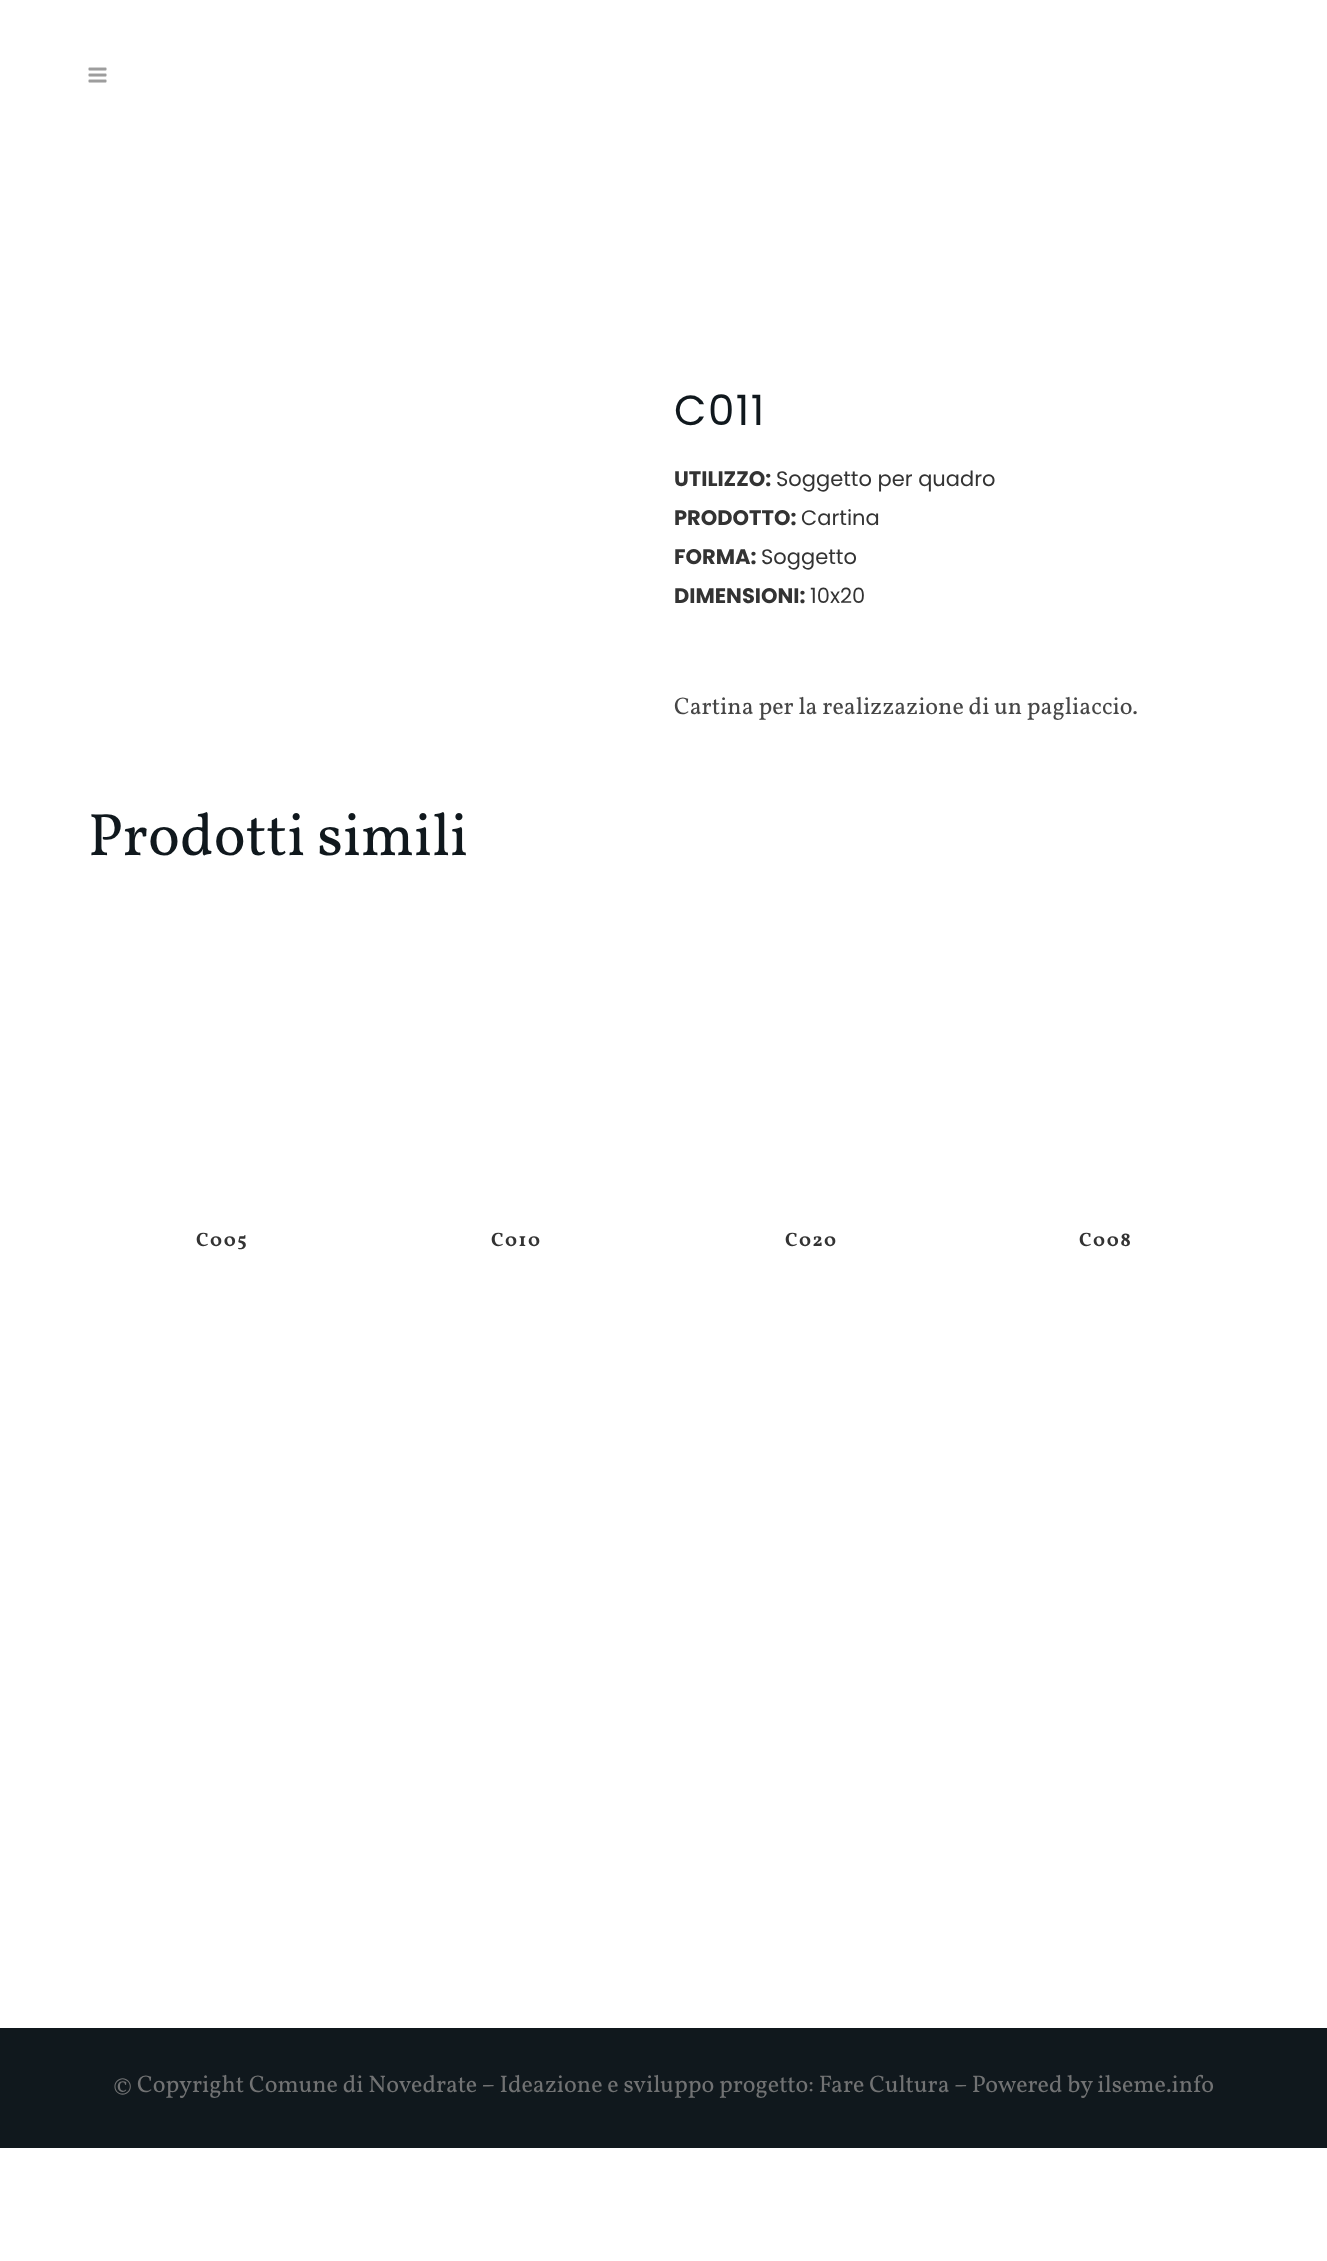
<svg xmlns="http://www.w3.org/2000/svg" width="1327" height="2261">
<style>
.a{font:42px Poppins;letter-spacing:1.5px;fill:#10181d}
.b{font:bold 21px Poppins;fill:#333}
.c{font:21px Poppins;fill:#333}
.d{font:24px Vollkorn;fill:#464646}
.e{font:60px Vollkorn;fill:#10181d}
.f{font:bold 19.5px Vollkorn;letter-spacing:1.5px;fill:#333}
.g{font:24px Vollkorn;fill:#717273}
</style>
<rect width="100%" height="100%" fill="#fff"/>
<image href="1.png" x="88" y="67" width="19" height="16"/>
<path fill="#10181d" d="M0 2028h1327v120H0z"/>
<text class="a" x="674" y="425">C011</text>
<text class="b" x="674" y="486">UTILIZZO:</text>
<text class="c" x="776" y="486">Soggetto per quadro</text>
<text class="b" x="674" y="525">PRODOTTO:</text>
<text class="c" x="801" y="525">Cartina</text>
<text class="b" x="674" y="564">FORMA:</text>
<text class="c" x="761" y="564">Soggetto</text>
<text class="b" x="674" y="603">DIMENSIONI:</text>
<text class="c" x="810" y="603">10x20</text>
<text class="d" x="674" y="714">Cartina per la realizzazione di un pagliaccio.</text>
<text class="e" x="88" y="855">Prodotti simili</text>
<text class="f" x="196" y="1246">C005</text>
<text class="f" x="491" y="1246">C010</text>
<text class="f" x="785" y="1246">C020</text>
<text class="f" x="1079" y="1246">C008</text>
<text class="g" x="113" y="2092">© Copyright Comune di Novedrate – Ideazione e sviluppo progetto: Fare Cultura – Powered by ilseme.info</text>
</svg>
